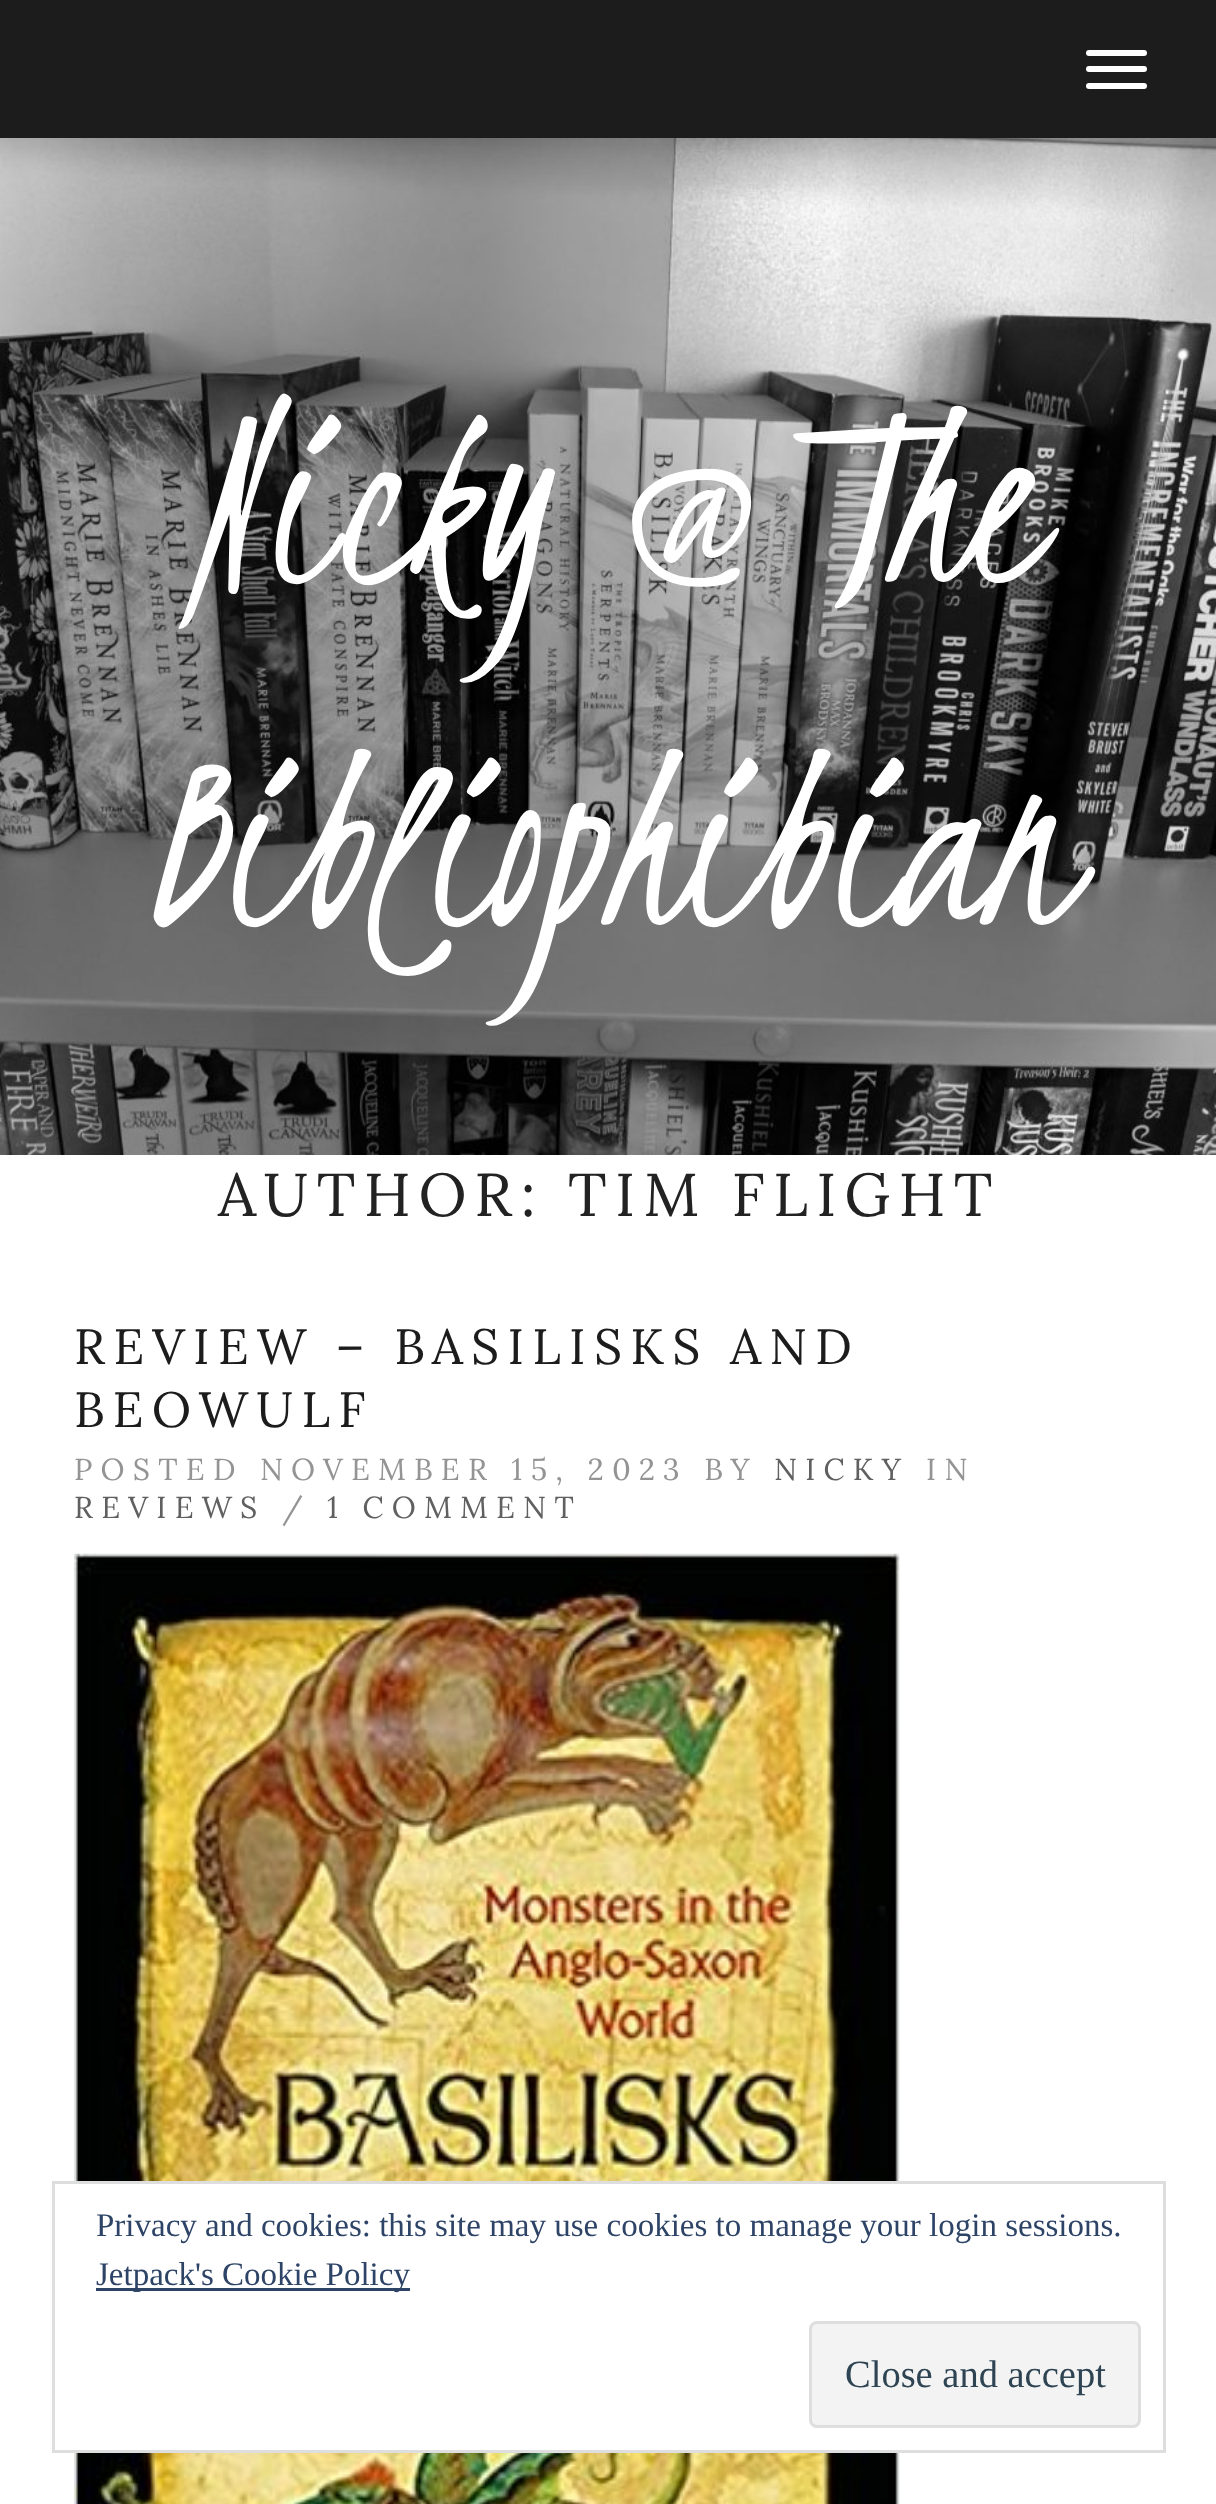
<svg xmlns="http://www.w3.org/2000/svg" width="1216" height="2504">
<style>
.a{font:275px Kristi;fill:#fff}
.b{font:60.5px Lora;letter-spacing:8.25px;fill:#222}
.c{font:49.5px Lora;letter-spacing:8.25px;fill:#1c1c1c}
.d{font:30.25px Lora;letter-spacing:8.25px;fill:#949494}
.e{font:30.25px Lora;letter-spacing:8.25px;fill:#606060}
.f{font:33px Liberation Serif;fill:#2e4467}
.g{font:38.5px Liberation Serif;fill:#2e4453}
</style>
<rect width="100%" height="100%" fill="#fff"/>
<path fill="#1c1c1c" d="M0 0h1216v138H0z"/>
<rect fill="#fff" x="1086" y="50" width="61" height="6" rx="3"/>
<rect fill="#fff" x="1086" y="66" width="61" height="6" rx="3"/>
<rect fill="#fff" x="1086" y="83" width="61" height="6" rx="3"/>
<image href="1.png" x="0" y="138" width="1216" height="1017"/>
<image href="2.png" x="74" y="1553" width="826" height="951"/>
<path fill="#fff" d="M74 2184h826v266H74z"/>
<path fill="none" stroke="#dedede" stroke-width="3" d="M53.5 2182.5h1111v269H53.5z"/>
<path fill="#2e4467" d="M96 2288h314v3H96z"/>
<rect fill="#f3f3f3" stroke="#dedede" stroke-width="3" x="810.5" y="2322.5" width="329" height="104" rx="6.5"/>
<text class="a" x="181" y="578">Nicky @ The</text>
<text class="a" x="145" y="921">Bibliophibian</text>
<text class="b" x="218" y="1216">AUTHOR: TIM FLIGHT</text>
<text class="c" x="74" y="1364">REVIEW – BASILISKS AND</text>
<text class="c" x="74" y="1427">BEOWULF</text>
<text class="d" x="74" y="1480">POSTED NOVEMBER 15, 2023 BY</text>
<text class="e" x="774" y="1480">NICKY</text>
<text class="d" x="926" y="1480">IN</text>
<text class="e" x="74" y="1518">REVIEWS</text>
<text class="d" x="282" y="1518">/</text>
<text class="e" x="327" y="1518">1 COMMENT</text>
<text class="f" x="96" y="2236">Privacy and cookies: this site may use cookies to manage your login sessions.</text>
<text class="f" x="96" y="2285">Jetpack's Cookie Policy</text>
<text class="g" x="845" y="2387">Close and accept</text>
</svg>
